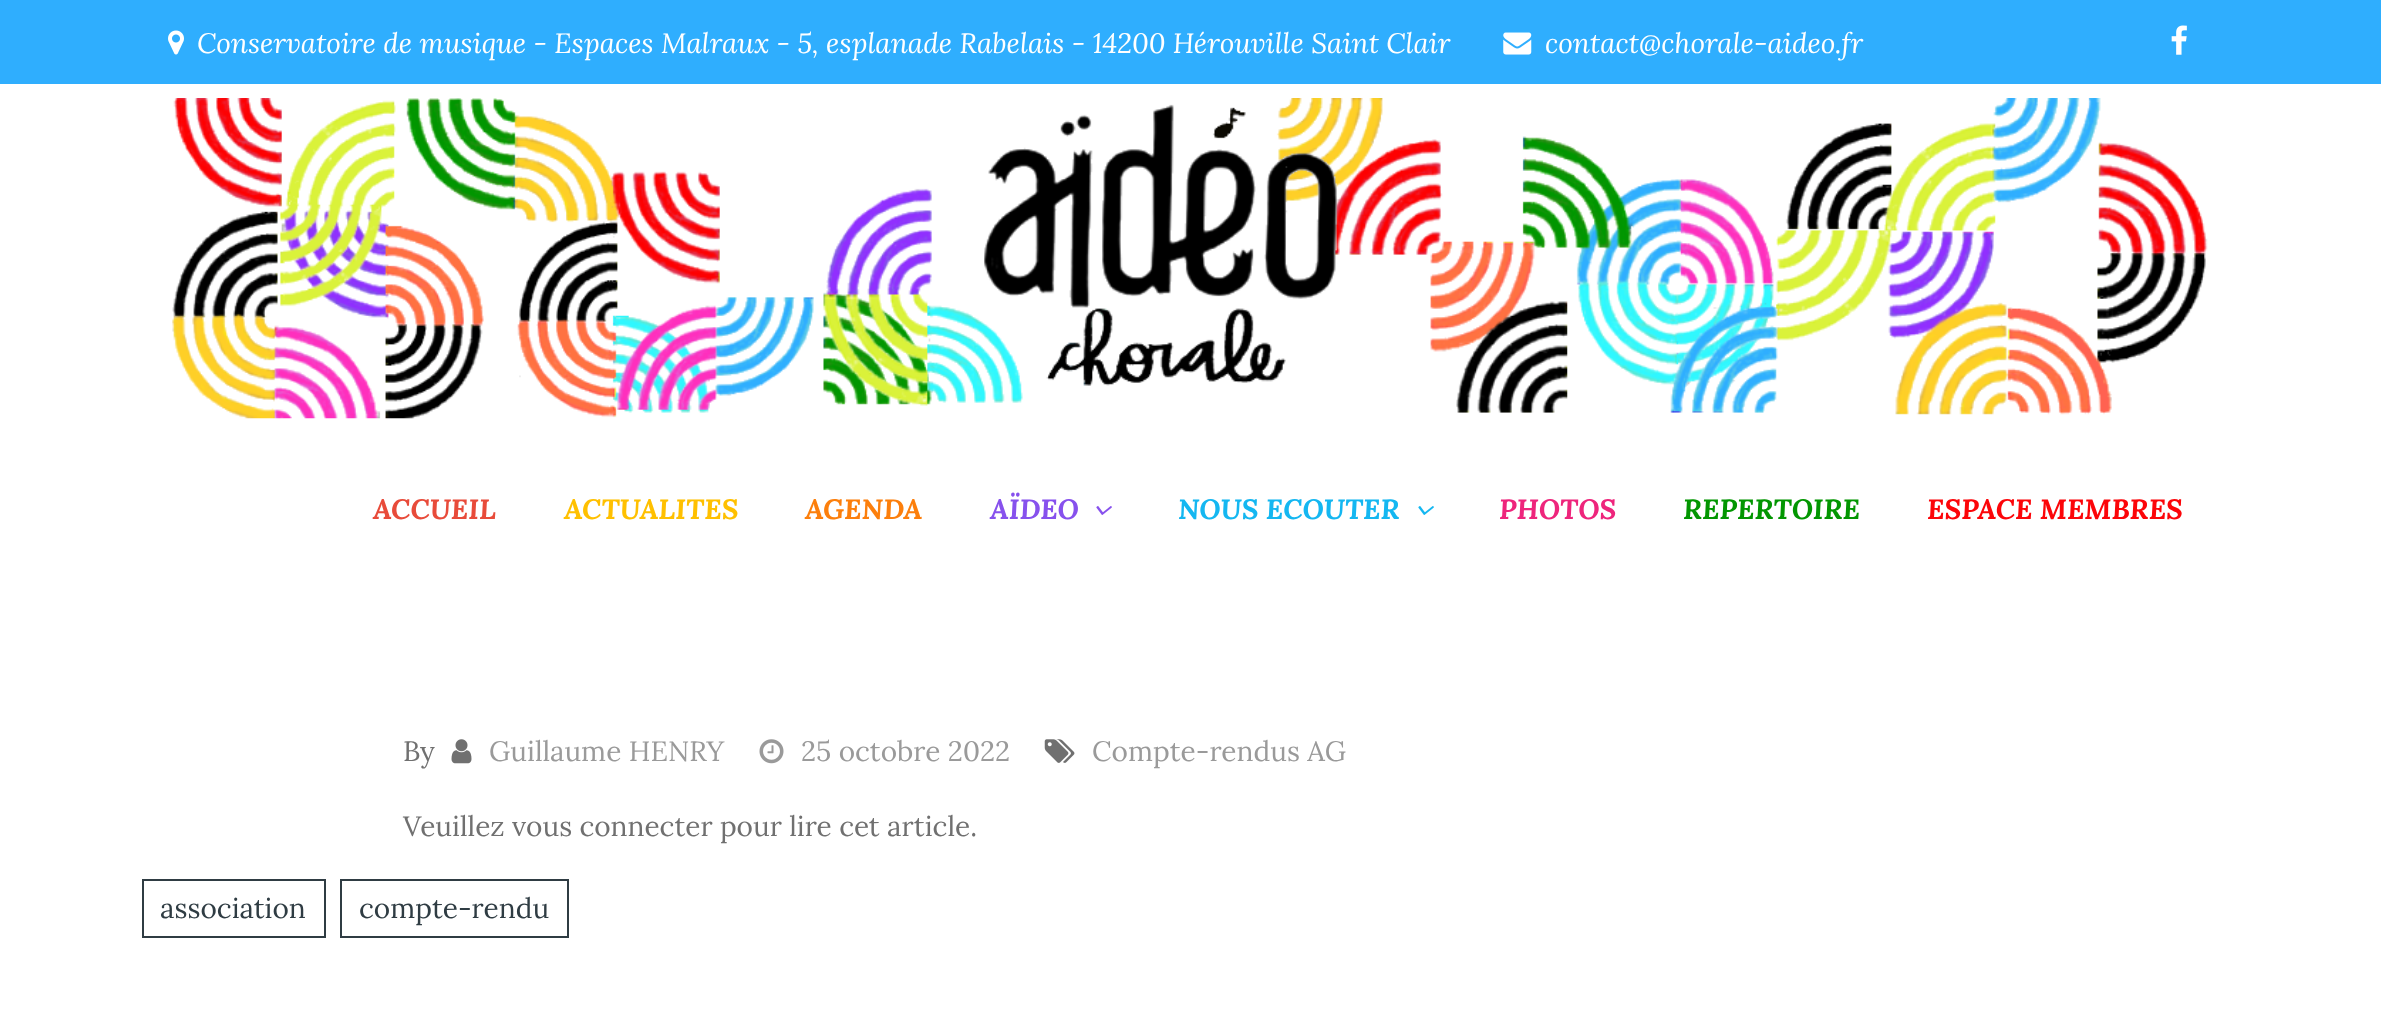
<svg xmlns="http://www.w3.org/2000/svg" width="2381" height="1011">
<style>
.a{font:italic 28px Lora;fill:#fff}
.b{font:italic bold 28px Lora;fill:#e84b3a}
.c{font:italic bold 28px Lora;fill:#ffc000}
.d{font:italic bold 28px Lora;fill:#fc7f0c}
.e{font:italic bold 28px Lora;fill:#8751ed}
.f{font:italic bold 28px Lora;fill:#14b7f1}
.g{font:italic bold 28px Lora;fill:#ee257c}
.h{font:italic bold 28px Lora;fill:#029601}
.i{font:italic bold 28px Lora;fill:#fc0509}
.j{font:28px Lora;fill:#707070}
.k{font:28px Lora;fill:#9a9a9a}
.l{font:28px Lora;fill:#2f3c43}
</style>
<rect width="100%" height="100%" fill="#fff"/>
<path fill="#2faefe" d="M0 0h2381v84H0z"/>
<image href="1.png" x="168" y="30" width="16" height="25"/>
<image href="2.png" x="1503" y="32" width="29" height="23"/>
<image href="3.png" x="2171" y="25" width="16" height="30"/>
<image href="4.png" x="172" y="98" width="2036" height="321"/>
<image href="5.png" x="1096" y="506" width="16" height="9"/>
<image href="6.png" x="1418" y="506" width="16" height="9"/>
<image href="7.png" x="451" y="739" width="21" height="25"/>
<image href="8.png" x="759" y="739" width="25" height="25"/>
<image href="9.png" x="1044" y="739" width="31" height="24"/>
<path fill="none" stroke="#2f3c43" stroke-width="2" d="M143 880h182v57H143z"/>
<path fill="none" stroke="#2f3c43" stroke-width="2" d="M341 880h227v57H341z"/>
<text class="a" x="197" y="53">Conservatoire de musique - Espaces Malraux - 5, esplanade Rabelais - 14200 Hérouville Saint Clair</text>
<text class="a" x="1545" y="53">contact@chorale-aideo.fr</text>
<text class="b" x="373" y="519">ACCUEIL</text>
<text class="c" x="564" y="519">ACTUALITES</text>
<text class="d" x="805" y="519">AGENDA</text>
<text class="e" x="990" y="519">AÏDEO</text>
<text class="f" x="1178" y="519">NOUS ECOUTER</text>
<text class="g" x="1499" y="519">PHOTOS</text>
<text class="h" x="1683" y="519">REPERTOIRE</text>
<text class="i" x="1927" y="519">ESPACE MEMBRES</text>
<text class="j" x="403" y="761">By</text>
<text class="k" x="489" y="761">Guillaume HENRY</text>
<text class="k" x="801" y="761">25 octobre 2022</text>
<text class="k" x="1092" y="761">Compte-rendus AG</text>
<text class="j" x="403" y="836">Veuillez vous connecter pour lire cet article.</text>
<text class="l" x="160" y="918">association</text>
<text class="l" x="359" y="918">compte-rendu</text>
</svg>
